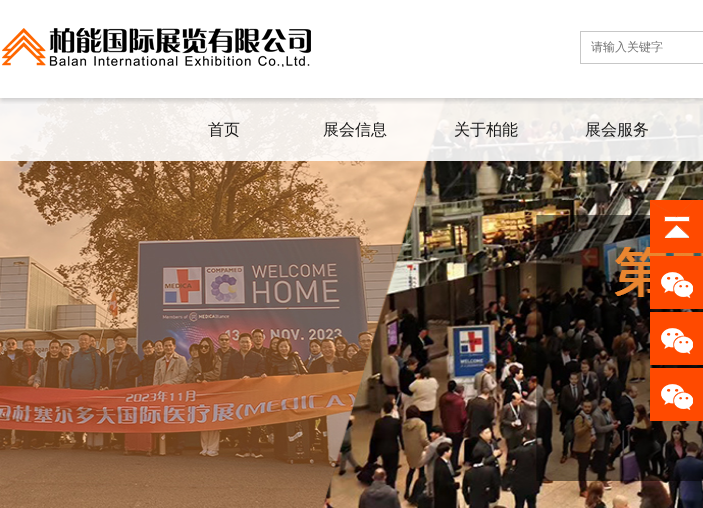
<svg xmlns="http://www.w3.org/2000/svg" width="703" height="508">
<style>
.a{font:500 12px WenQuanYi Zen Hei;fill:#757575}
.b{font:500 16px WenQuanYi Zen Hei;fill:#181818}
</style>
<defs>
<clipPath id="clip1"><path d="M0 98h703v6H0z"/></clipPath>
</defs>
<rect width="100%" height="100%" fill="#fff"/>
<image href="2.png" x="0" y="98" width="703" height="410"/>
<path fill="#ffffffe6" d="M0 98h703v63H0z"/>
<g clip-path="url(#clip1)">
<path fill="#99999966" filter="blur(2px)" d="M0 3h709v98H0z"/>
</g>
<image href="1.png" x="2" y="28" width="309" height="39"/>
<path fill="#c7c7c7" d="M580 31h123v1H580z"/>
<path fill="#c7c7c7" d="M580 63h123v1H580z"/>
<path fill="#c7c7c7" d="M580 31h1v33H580z"/>
<path fill="#ff4a00" d="M650 200h53v53H650z"/>
<image href="3.png" x="651" y="201" width="43" height="37"/>
<path fill="#ff4a00" d="M650 256h53v53H650z"/>
<image href="4.png" x="661" y="272" width="32" height="26"/>
<path fill="#ff4a00" d="M650 312h53v53H650z"/>
<image href="4.png" x="661" y="328" width="32" height="26"/>
<path fill="#ff4a00" d="M650 368h53v53H650z"/>
<image href="4.png" x="661" y="384" width="32" height="26"/>
<text class="a" x="591" y="51">请输入关键字</text>
<text class="b" x="208" y="135">首页</text>
<text class="b" x="323" y="135">展会信息</text>
<text class="b" x="454" y="135">关于柏能</text>
<text class="b" x="585" y="135">展会服务</text>
</svg>
